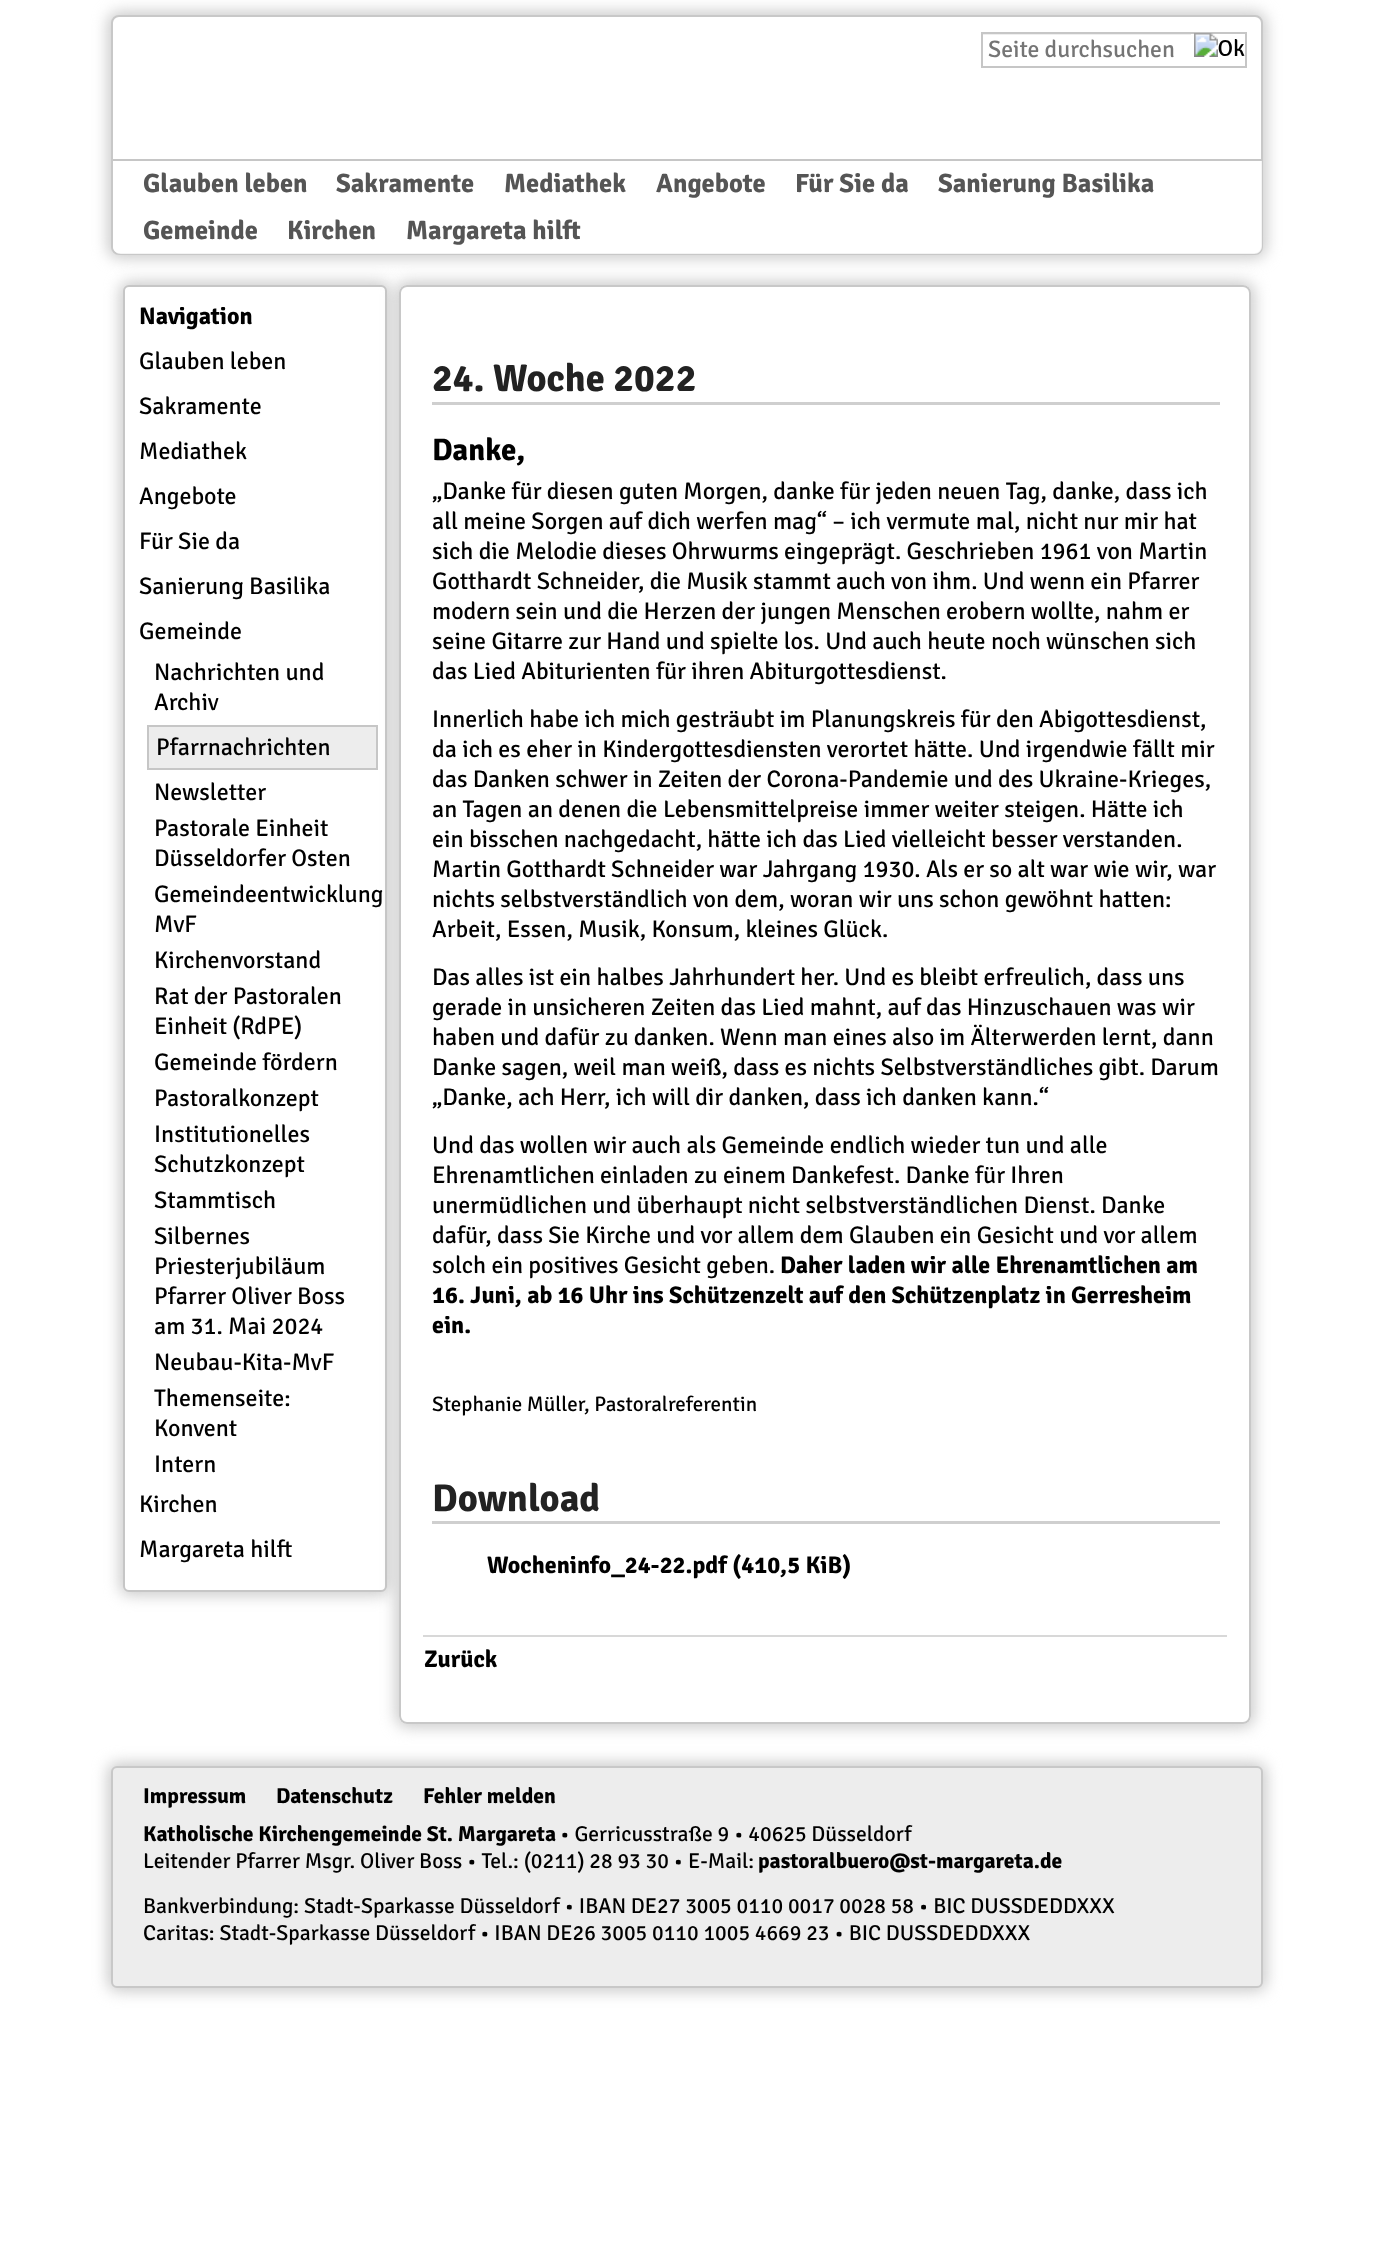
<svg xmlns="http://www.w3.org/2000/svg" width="1373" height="2251">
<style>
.a{font:23.75px Signika;fill:#757575}
.b{font:bold 26.5px Signika;fill:#555}
.c{font:bold 24px Signika;fill:#000}
.d{font:24px Signika;fill:#000}
.e{font:bold 38.5px Signika;fill:#222}
.f{font:bold 31px Signika;fill:#000}
.g{font:21px Signika;fill:#000}
.h{font:bold 21.6px Signika;fill:#000}
.i{font:21.6px Signika;fill:#000}
</style>
<defs>
<clipPath id="clip1"><path d="M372 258h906v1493h-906zm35 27h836c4.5 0 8 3.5 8 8v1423c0 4.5-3.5 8-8 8h-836c-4.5 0-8-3.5-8-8v-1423c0-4.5 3.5-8 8-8z" clip-rule="evenodd"/></clipPath>
</defs>
<rect width="100%" height="100%" fill="#fff"/>
<rect fill="#c8c8c8" filter="blur(7.5px)" x="108" y="12" width="1158" height="246" rx="11"/>
<rect fill="#fff" stroke="#c8c8c8" stroke-width="2" x="112" y="16" width="1150" height="238" rx="7"/>
<path fill="#eee" d="M983 34h208v1H983z"/>
<path fill="#c6c6c6" d="M981 32h266v2H981z"/>
<path fill="#c6c6c6" d="M981 66h210v2H981z"/>
<path fill="#c6c6c6" d="M981 32h2v36H981z"/>
<path fill="#c6c6c6" d="M1245 32h2v36H1245z"/>
<path fill="#c6c6c6" d="M1191 66h56v2H1191z"/>
<image href="1.png" x="1194" y="33" width="51" height="24"/>
<path fill="#ffffffcc" d="M113 159h1149v87c0 4.5-3.5 8-8 8h-1133c-4.5 0-8-3.5-8-8z"/>
<path fill="#c6c6c6" d="M113 159h1149v2H113z"/>
<rect fill="#c8c8c8" filter="blur(7.5px)" x="120" y="282" width="270" height="1313" rx="9"/>
<rect fill="#fff" stroke="#c6c6c6" stroke-width="2" x="124" y="286" width="262" height="1305" rx="5"/>
<path fill="#ededed" stroke="#c6c6c6" stroke-width="2" d="M148 726h229v43H148z"/>
<g clip-path="url(#clip1)">
<rect fill="#c8c8c8" filter="blur(7.5px)" x="396" y="282" width="858" height="1445" rx="11"/>
</g>
<rect fill="#fffffff2" stroke="#c8c8c8" stroke-width="2" x="400" y="286" width="850" height="1437" rx="7"/>
<path fill="#d8d8d8" d="M423 1635h804v2H423z"/>
<path fill="#cfcfcf" d="M432 402h788v3H432z"/>
<path fill="#cfcfcf" d="M432 1521h788v3H432z"/>
<rect fill="#c8c8c8" filter="blur(7.5px)" x="108" y="1763" width="1158" height="228" rx="9"/>
<rect fill="#ededed" stroke="#c8c8c8" stroke-width="2" x="112" y="1767" width="1150" height="220" rx="5"/>
<text class="a" x="988" y="57">Seite durchsuchen</text>
<text class="b" x="143" y="192">Glauben leben</text>
<text class="b" x="336" y="192">Sakramente</text>
<text class="b" x="504" y="192">Mediathek</text>
<text class="b" x="656" y="192">Angebote</text>
<text class="b" x="795" y="192">Für Sie da</text>
<text class="b" x="938" y="192">Sanierung Basilika</text>
<text class="b" x="143" y="239">Gemeinde</text>
<text class="b" x="287" y="239">Kirchen</text>
<text class="b" x="406" y="239">Margareta hilft</text>
<text class="c" x="139" y="324">Navigation</text>
<text class="d" x="139" y="369">Glauben leben</text>
<text class="d" x="139" y="414">Sakramente</text>
<text class="d" x="139" y="459">Mediathek</text>
<text class="d" x="139" y="504">Angebote</text>
<text class="d" x="139" y="549">Für Sie da</text>
<text class="d" x="139" y="594">Sanierung Basilika</text>
<text class="d" x="139" y="639">Gemeinde</text>
<text class="d" x="154" y="680">Nachrichten und</text>
<text class="d" x="154" y="710">Archiv</text>
<text class="d" x="156" y="755">Pfarrnachrichten</text>
<text class="d" x="154" y="800">Newsletter</text>
<text class="d" x="154" y="836">Pastorale Einheit</text>
<text class="d" x="154" y="866">Düsseldorfer Osten</text>
<text class="d" x="154" y="902">Gemeindeentwicklung</text>
<text class="d" x="154" y="932">MvF</text>
<text class="d" x="154" y="968">Kirchenvorstand</text>
<text class="d" x="154" y="1004">Rat der Pastoralen</text>
<text class="d" x="154" y="1034">Einheit (RdPE)</text>
<text class="d" x="154" y="1070">Gemeinde fördern</text>
<text class="d" x="154" y="1106">Pastoralkonzept</text>
<text class="d" x="154" y="1142">Institutionelles</text>
<text class="d" x="154" y="1172">Schutzkonzept</text>
<text class="d" x="154" y="1208">Stammtisch</text>
<text class="d" x="154" y="1244">Silbernes</text>
<text class="d" x="154" y="1274">Priesterjubiläum</text>
<text class="d" x="154" y="1304">Pfarrer Oliver Boss</text>
<text class="d" x="154" y="1334">am 31. Mai 2024</text>
<text class="d" x="154" y="1370">Neubau-Kita-MvF</text>
<text class="d" x="154" y="1406">Themenseite:</text>
<text class="d" x="154" y="1436">Konvent</text>
<text class="d" x="154" y="1472">Intern</text>
<text class="d" x="139" y="1512">Kirchen</text>
<text class="d" x="139" y="1557">Margareta hilft</text>
<text class="e" x="432" y="391">24. Woche 2022</text>
<text class="f" x="432" y="460">Danke,</text>
<text class="d" x="432" y="499">„Danke für diesen guten Morgen, danke für jeden neuen Tag, danke, dass ich</text>
<text class="d" x="432" y="529">all meine Sorgen auf dich werfen mag“ – ich vermute mal, nicht nur mir hat</text>
<text class="d" x="432" y="559">sich die Melodie dieses Ohrwurms eingeprägt. Geschrieben 1961 von Martin</text>
<text class="d" x="432" y="589">Gotthardt Schneider, die Musik stammt auch von ihm. Und wenn ein Pfarrer</text>
<text class="d" x="432" y="619">modern sein und die Herzen der jungen Menschen erobern wollte, nahm er</text>
<text class="d" x="432" y="649">seine Gitarre zur Hand und spielte los. Und auch heute noch wünschen sich</text>
<text class="d" x="432" y="679">das Lied Abiturienten für ihren Abiturgottesdienst.</text>
<text class="d" x="432" y="727">Innerlich habe ich mich gesträubt im Planungskreis für den Abigottesdienst,</text>
<text class="d" x="432" y="757">da ich es eher in Kindergottesdiensten verortet hätte. Und irgendwie fällt mir</text>
<text class="d" x="432" y="787">das Danken schwer in Zeiten der Corona-Pandemie und des Ukraine-Krieges,</text>
<text class="d" x="432" y="817">an Tagen an denen die Lebensmittelpreise immer weiter steigen. Hätte ich</text>
<text class="d" x="432" y="847">ein bisschen nachgedacht, hätte ich das Lied vielleicht besser verstanden.</text>
<text class="d" x="432" y="877">Martin Gotthardt Schneider war Jahrgang 1930. Als er so alt war wie wir, war</text>
<text class="d" x="432" y="907">nichts selbstverständlich von dem, woran wir uns schon gewöhnt hatten:</text>
<text class="d" x="432" y="937">Arbeit, Essen, Musik, Konsum, kleines Glück.</text>
<text class="d" x="432" y="985">Das alles ist ein halbes Jahrhundert her. Und es bleibt erfreulich, dass uns</text>
<text class="d" x="432" y="1015">gerade in unsicheren Zeiten das Lied mahnt, auf das Hinzuschauen was wir</text>
<text class="d" x="432" y="1045">haben und dafür zu danken. Wenn man eines also im Älterwerden lernt, dann</text>
<text class="d" x="432" y="1075">Danke sagen, weil man weiß, dass es nichts Selbstverständliches gibt. Darum</text>
<text class="d" x="432" y="1105">„Danke, ach Herr, ich will dir danken, dass ich danken kann.“</text>
<text class="d" x="432" y="1153">Und das wollen wir auch als Gemeinde endlich wieder tun und alle</text>
<text class="d" x="432" y="1183">Ehrenamtlichen einladen zu einem Dankefest. Danke für Ihren</text>
<text class="d" x="432" y="1213">unermüdlichen und überhaupt nicht selbstverständlichen Dienst. Danke</text>
<text class="d" x="432" y="1243">dafür, dass Sie Kirche und vor allem dem Glauben ein Gesicht und vor allem</text>
<text class="d" x="432" y="1273">solch ein positives Gesicht geben.</text>
<text class="c" x="780" y="1273">Daher laden wir alle Ehrenamtlichen am</text>
<text class="c" x="432" y="1303">16. Juni, ab 16 Uhr ins Schützenzelt auf den Schützenplatz in Gerresheim</text>
<text class="c" x="432" y="1333">ein.</text>
<text class="g" x="432" y="1411">Stephanie Müller, Pastoralreferentin</text>
<text class="e" x="432" y="1511">Download</text>
<text class="c" x="487" y="1573">Wocheninfo_24-22.pdf (410,5 KiB)</text>
<text class="c" x="424" y="1667">Zurück</text>
<text class="h" x="143" y="1803">Impressum</text>
<text class="h" x="276" y="1803">Datenschutz</text>
<text class="h" x="423" y="1803">Fehler melden</text>
<text class="h" x="143" y="1841">Katholische Kirchengemeinde St. Margareta</text>
<text class="i" x="560" y="1841">• Gerricusstraße 9 • 40625 Düsseldorf</text>
<text class="i" x="143" y="1868">Leitender Pfarrer Msgr. Oliver Boss • Tel.: (0211) 28 93 30 • E-Mail:</text>
<text class="h" x="758" y="1868">pastoralbuero@st-margareta.de</text>
<text class="i" x="143" y="1913">Bankverbindung: Stadt-Sparkasse Düsseldorf • IBAN DE27 3005 0110 0017 0028 58 • BIC DUSSDEDDXXX</text>
<text class="i" x="143" y="1940">Caritas: Stadt-Sparkasse Düsseldorf • IBAN DE26 3005 0110 1005 4669 23 • BIC DUSSDEDDXXX</text>
</svg>
